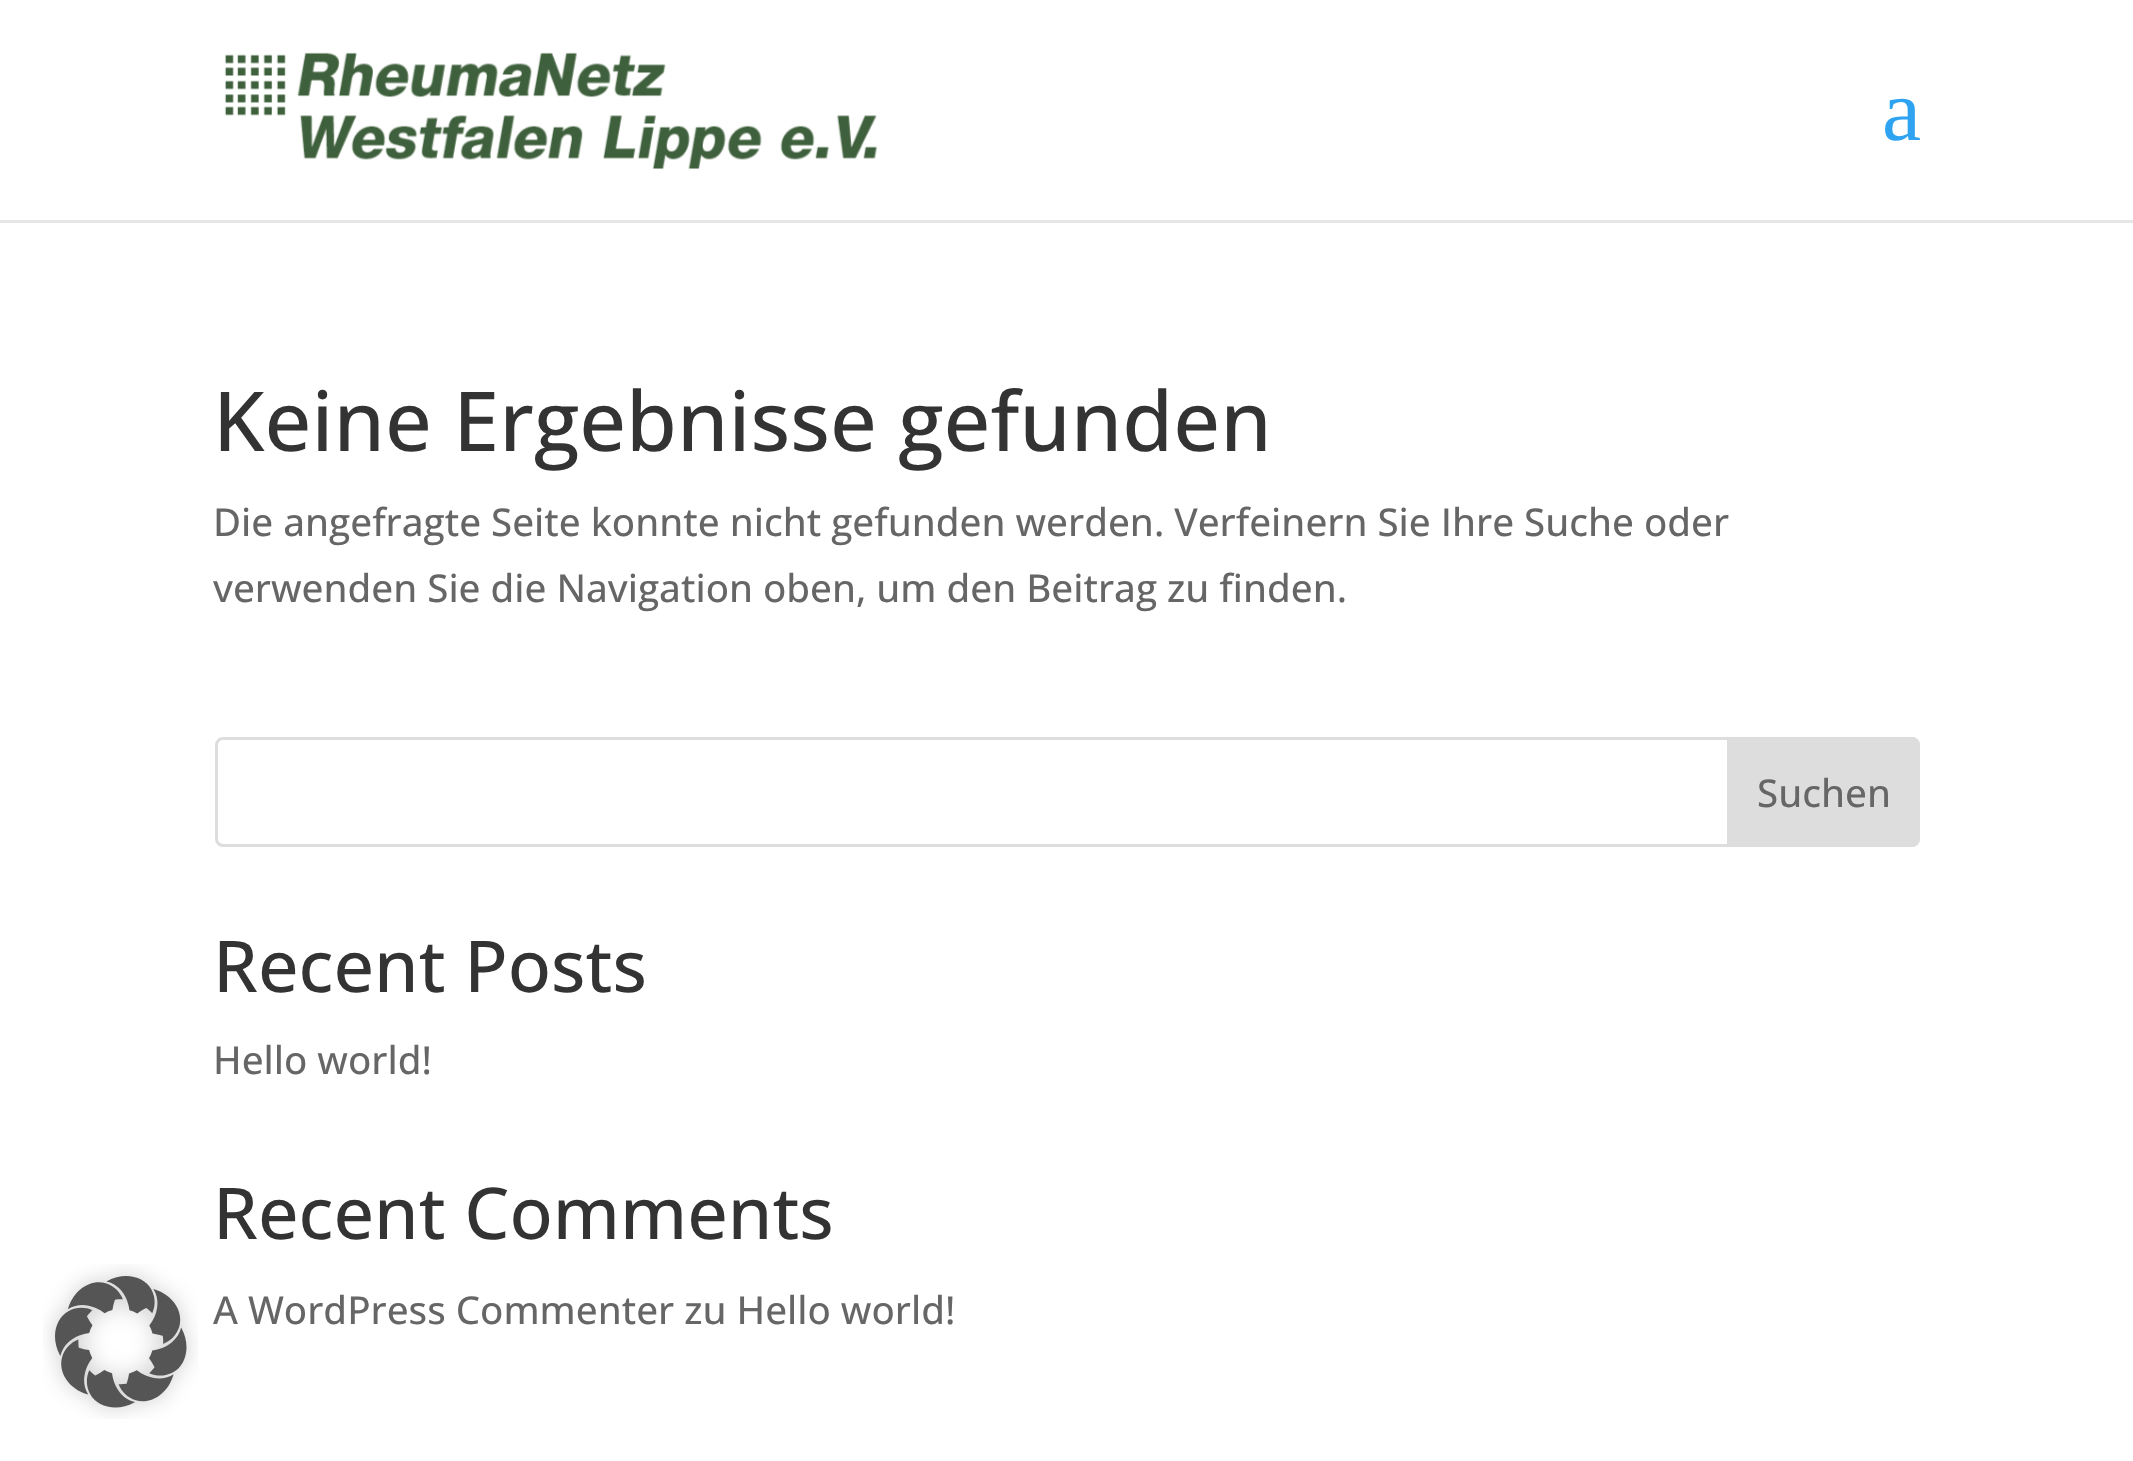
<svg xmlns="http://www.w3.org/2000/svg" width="2133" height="1461">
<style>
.a{font:88px Liberation Serif;fill:#2ea3f2}
.b{font:500 82.5px Open Sans;fill:#333}
.c{font:500 38.5px Open Sans;fill:#666}
.d{font:500 71.5px Open Sans;fill:#333}
</style>
<rect width="100%" height="100%" fill="#fff"/>
<path fill="#e6e6e6" d="M0 220h2133v3H0z"/>
<image href="1.png" x="224" y="52" width="654" height="118"/>
<rect fill="none" stroke="#ddd" stroke-width="3" x="216.5" y="738.5" width="1702" height="107" rx="6.5"/>
<path fill="#ddd" stroke="#ddd" stroke-width="3" d="M1728.5 738.5h183.5c3.5 0 6.5 3 6.5 6.5v94c0 3.5-3 6.5-6.5 6.5h-183.5z"/>
<image href="2.png" x="43" y="1264" width="155" height="155"/>
<text class="a" x="1882" y="140">a</text>
<text class="b" x="213" y="451">Keine Ergebnisse gefunden</text>
<text class="c" x="213" y="536">Die angefragte Seite konnte nicht gefunden werden. Verfeinern Sie Ihre Suche oder</text>
<text class="c" x="213" y="602">verwenden Sie die Navigation oben, um den Beitrag zu finden.</text>
<text class="c" x="1757" y="807">Suchen</text>
<text class="d" x="213" y="992">Recent Posts</text>
<text class="c" x="213" y="1074">Hello world!</text>
<text class="d" x="213" y="1239">Recent Comments</text>
<text class="c" x="213" y="1324">A WordPress Commenter zu Hello world!</text>
</svg>
